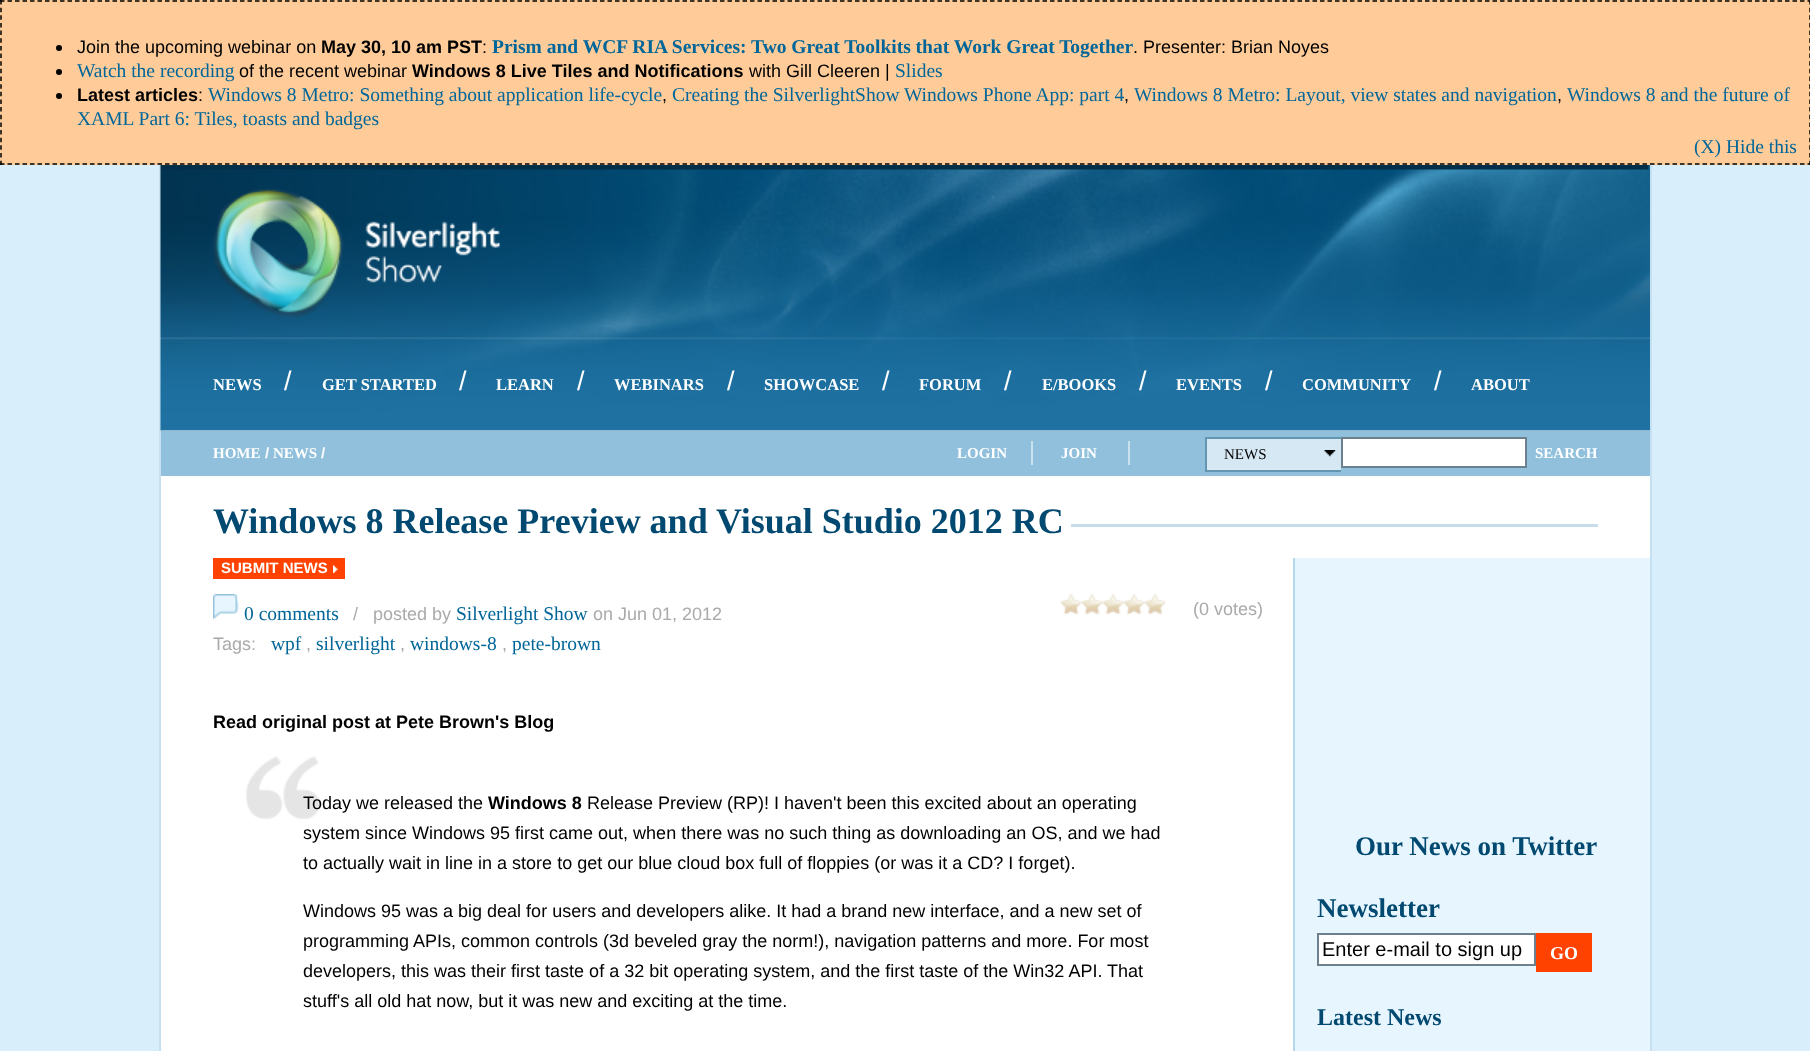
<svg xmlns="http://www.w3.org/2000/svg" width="1810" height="1051">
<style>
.a{font:18px Liberation Sans;fill:#000}
.b{font:bold 18px Liberation Sans;fill:#000}
.c{font:bold 19.5px Liberation Serif;fill:#069}
.d{font:19.5px Liberation Serif;fill:#069}
.e{font:bold 16.5px Liberation Serif;fill:#fff}
.f{font:27px Liberation Sans;fill:#fff}
.g{font:bold 15px Liberation Serif;fill:#fff}
.h{font:bold 15px Liberation Sans;fill:#fff}
.i{font:15px Liberation Serif;fill:#000}
.j{font:bold 36px Liberation Serif;fill:#024971}
.k{font:18px Liberation Sans;fill:#aaa}
.l{font:bold 27px Liberation Serif;fill:#024971}
.m{font:20px Liberation Sans;fill:#000}
.n{font:bold 18px Liberation Serif;fill:#fff}
.o{font:bold 24px Liberation Serif;fill:#024971}
</style>
<rect width="100%" height="100%" fill="#d8effb"/>
<path fill="#fc9" d="M0 0h1810v165H0z"/>
<path fill="none" stroke="#000" stroke-width="1.5" stroke-dasharray="4.5 3" d="M0 1h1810.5"/>
<path fill="none" stroke="#000" stroke-width="1.5" stroke-dasharray="4.5 3.15" d="M1810 0v165"/>
<path fill="none" stroke="#000" stroke-width="1.5" stroke-dasharray="4.5 3" d="M0 164h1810.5"/>
<path fill="none" stroke="#000" stroke-width="1.5" stroke-dasharray="4.5 3.15" d="M1 0v165"/>
<circle fill="#000" cx="59" cy="48" r="3"/>
<circle fill="#000" cx="59" cy="72" r="3"/>
<circle fill="#000" cx="59" cy="96" r="3"/>
<path fill="#fff" d="M161 430h1489v621H161z"/>
<path fill="#c5e1f1" d="M1650 165h2v886H1650z"/>
<path fill="#c5e1f1" d="M159 165h2v886H159z"/>
<image href="1.png" x="160" y="165" width="1490" height="266"/>
<image href="2.png" x="213" y="188" width="287" height="130"/>
<path fill="#90c0db" d="M161 431h1489v45H161z"/>
<path fill="#c9e1ed" d="M1031 441h2v24H1031z"/>
<path fill="#c9e1ed" d="M1128 441h2v24H1128z"/>
<path fill="#d6e8f3" d="M1207 439h134v31H1207z"/>
<path fill="#6596b1" d="M1205 437h136v2H1205z"/>
<path fill="#6596b1" d="M1205 470h136v2H1205z"/>
<path fill="#6596b1" d="M1205 437h2v34H1205z"/>
<image href="3.png" x="1324" y="450" width="12" height="7"/>
<path fill="#fff" stroke="#6c818d" stroke-width="2" d="M1342 438h184v29H1342z"/>
<path fill="#c7ddeb" d="M1071 524h527v3H1071z"/>
<path fill="#e7f6fe" d="M1296 558h354v493H1296z"/>
<image href="4.png" x="1295" y="558" width="1" height="493"/>
<path fill="#b8d7ea" d="M1293 558h2v493H1293z"/>
<path fill="#ff4200" d="M213 558h132v21H213z"/>
<image href="5.png" x="333" y="565" width="5" height="8"/>
<image href="6.png" x="213" y="594" width="26" height="26"/>
<image href="7.png" x="1060" y="594" width="22" height="21"/>
<image href="8.png" x="1081" y="594" width="22" height="21"/>
<image href="8.png" x="1102" y="594" width="22" height="21"/>
<image href="9.png" x="1123" y="594" width="22" height="21"/>
<image href="9.png" x="1144" y="594" width="22" height="21"/>
<image href="10.png" x="246" y="756" width="74" height="63"/>
<path fill="#fff" stroke="#6c818d" stroke-width="2" d="M1318 934h217v31H1318z"/>
<path fill="#ff4200" d="M1536 933h56v39H1536z"/>
<text class="a" x="77" y="53">Join the upcoming webinar on</text>
<text class="b" x="321" y="53">May 30, 10 am PST</text>
<text class="a" x="482" y="53">:</text>
<text class="c" x="492" y="53">Prism and WCF RIA Services: Two Great Toolkits that Work Great Together</text>
<text class="a" x="1133" y="53">. Presenter: Brian Noyes</text>
<text class="d" x="77" y="77">Watch the recording</text>
<text class="a" x="239" y="77">of the recent webinar</text>
<text class="b" x="412" y="77">Windows 8 Live Tiles and Notifications</text>
<text class="a" x="749" y="77">with Gill Cleeren |</text>
<text class="d" x="895" y="77">Slides</text>
<text class="b" x="77" y="101">Latest articles</text>
<text class="a" x="198" y="101">:</text>
<text class="d" x="208" y="101">Windows 8 Metro: Something about application life-cycle</text>
<text class="d" x="672" y="101">Creating the SilverlightShow Windows Phone App: part 4</text>
<text class="d" x="1134" y="101">Windows 8 Metro: Layout, view states and navigation</text>
<text class="d" x="1567" y="101">Windows 8 and the future of</text>
<text class="a" x="662" y="101">,</text>
<text class="a" x="1124" y="101">,</text>
<text class="a" x="1557" y="101">,</text>
<text class="d" x="77" y="125">XAML Part 6: Tiles, toasts and badges</text>
<text class="d" x="1694" y="153">(X) Hide this</text>
<text class="e" x="213" y="390">NEWS</text>
<text class="f" x="284" y="390">/</text>
<text class="e" x="322" y="390">GET STARTED</text>
<text class="f" x="459" y="390">/</text>
<text class="e" x="496" y="390">LEARN</text>
<text class="f" x="577" y="390">/</text>
<text class="e" x="614" y="390">WEBINARS</text>
<text class="f" x="727" y="390">/</text>
<text class="e" x="764" y="390">SHOWCASE</text>
<text class="f" x="882" y="390">/</text>
<text class="e" x="919" y="390">FORUM</text>
<text class="f" x="1004" y="390">/</text>
<text class="e" x="1042" y="390">E/BOOKS</text>
<text class="f" x="1139" y="390">/</text>
<text class="e" x="1176" y="390">EVENTS</text>
<text class="f" x="1265" y="390">/</text>
<text class="e" x="1302" y="390">COMMUNITY</text>
<text class="f" x="1434" y="390">/</text>
<text class="e" x="1471" y="390">ABOUT</text>
<text class="g" x="213" y="458">HOME</text>
<text class="h" x="265" y="458">/</text>
<text class="g" x="273" y="458">NEWS</text>
<text class="h" x="321" y="458">/</text>
<text class="g" x="957" y="458">LOGIN</text>
<text class="g" x="1061" y="458">JOIN</text>
<text class="i" x="1224" y="459">NEWS</text>
<text class="g" x="1535" y="458">SEARCH</text>
<text class="j" x="213" y="533">Windows 8 Release Preview and Visual Studio 2012 RC</text>
<text class="h" x="221" y="573">SUBMIT NEWS</text>
<text class="d" x="244" y="620">0 comments</text>
<text class="k" x="353" y="620">/</text>
<text class="k" x="373" y="620">posted by</text>
<text class="d" x="456" y="620">Silverlight Show</text>
<text class="k" x="593" y="620">on Jun 01, 2012</text>
<text class="k" x="1193" y="615">(0 votes)</text>
<text class="k" x="213" y="650">Tags:</text>
<text class="d" x="271" y="650">wpf</text>
<text class="k" x="306" y="650">,</text>
<text class="d" x="316" y="650">silverlight</text>
<text class="k" x="400" y="650">,</text>
<text class="d" x="410" y="650">windows-8</text>
<text class="k" x="502" y="650">,</text>
<text class="d" x="512" y="650">pete-brown</text>
<text class="b" x="213" y="728">Read original post at Pete Brown's Blog</text>
<text class="a" x="303" y="809">Today we released the</text>
<text class="b" x="488" y="809">Windows 8</text>
<text class="a" x="587" y="809">Release Preview (RP)! I haven't been this excited about an operating</text>
<text class="a" x="303" y="839">system since Windows 95 first came out, when there was no such thing as downloading an OS, and we had</text>
<text class="a" x="303" y="869">to actually wait in line in a store to get our blue cloud box full of floppies (or was it a CD? I forget).</text>
<text class="a" x="303" y="917">Windows 95 was a big deal for users and developers alike. It had a brand new interface, and a new set of</text>
<text class="a" x="303" y="947">programming APIs, common controls (3d beveled gray the norm!), navigation patterns and more. For most</text>
<text class="a" x="303" y="977">developers, this was their first taste of a 32 bit operating system, and the first taste of the Win32 API. That</text>
<text class="a" x="303" y="1007">stuff's all old hat now, but it was new and exciting at the time.</text>
<text class="l" x="1355" y="855">Our News on Twitter</text>
<text class="l" x="1317" y="917">Newsletter</text>
<text class="m" x="1322" y="956">Enter e-mail to sign up</text>
<text class="n" x="1550" y="959">GO</text>
<text class="o" x="1317" y="1025">Latest News</text>
</svg>
